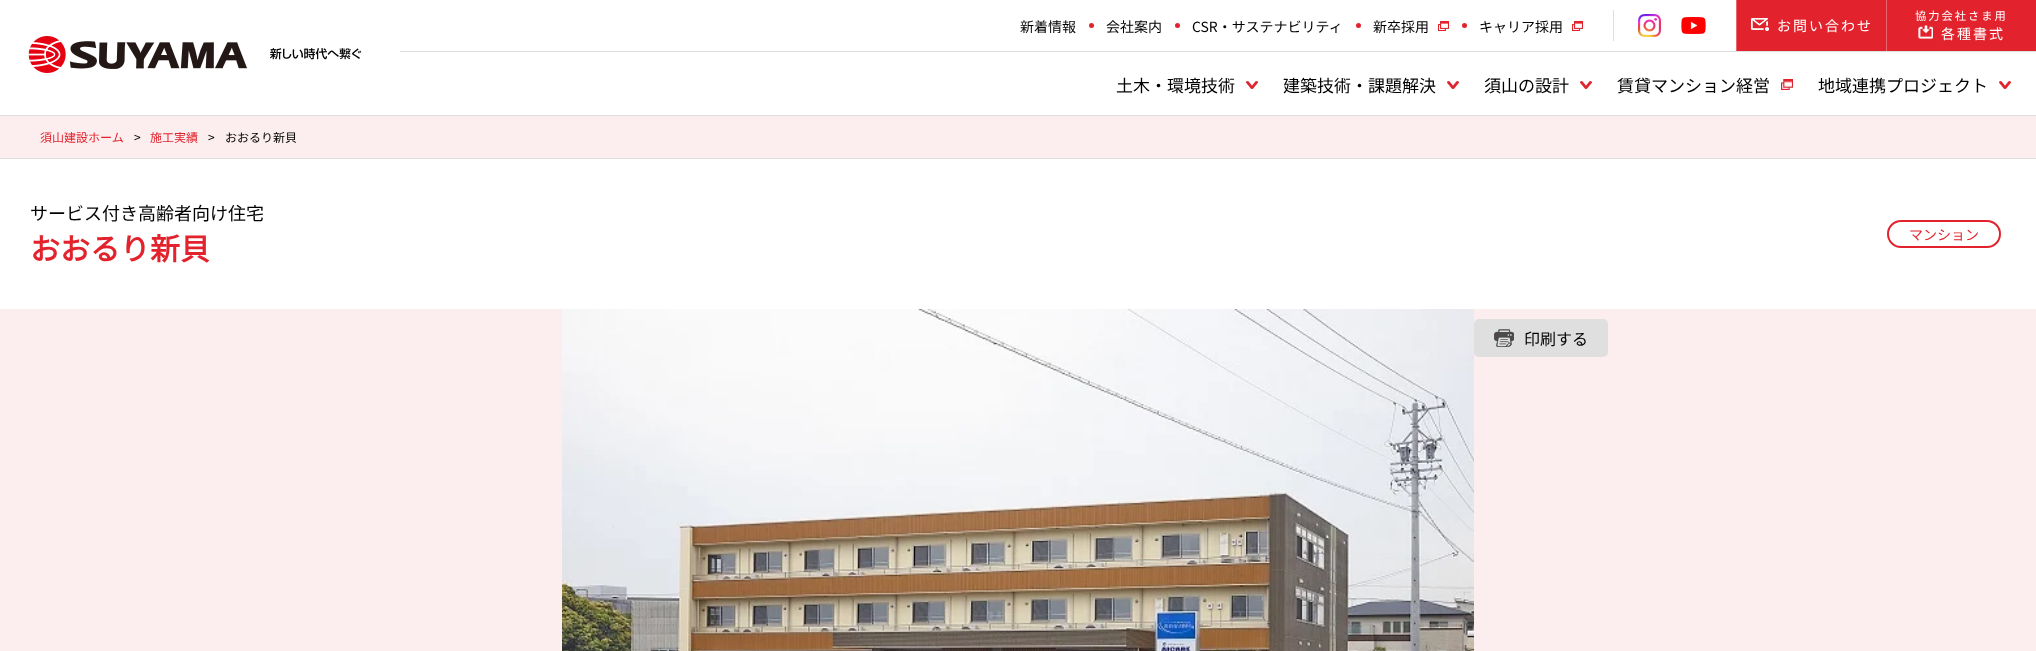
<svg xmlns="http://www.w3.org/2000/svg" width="2036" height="651">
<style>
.a{font:100 14px Noto Sans JP;fill:#000}
.b{font:100 14px Noto Sans JP;letter-spacing:2px;fill:#fff}
.c{font:100 11.25px Noto Sans JP;letter-spacing:2px;fill:#fff}
.d{font:100 17px Noto Sans JP;fill:#000}
.e{font:100 12px Noto Sans JP;fill:#e2232d}
.f{font:100 12px Noto Sans JP;fill:#000}
.g{font:100 18px Noto Sans JP;fill:#000}
.h{font:bold 30px Noto Sans JP;fill:#e2232d}
.i{font:100 14px Noto Sans JP;fill:#e2232d}
.j{font:100 16px Noto Sans JP;fill:#000}
</style>
<rect width="100%" height="100%" fill="#fff"/>
<image href="1.png" x="28" y="36" width="334" height="37"/>
<circle fill="#e2232d" cx="1091.5" cy="25.5" r="2.5"/>
<circle fill="#e2232d" cx="1177.5" cy="25.5" r="2.5"/>
<circle fill="#e2232d" cx="1358.5" cy="25.5" r="2.5"/>
<image href="2.png" x="1438" y="21" width="11" height="10"/>
<circle fill="#e2232d" cx="1464.5" cy="25.5" r="2.5"/>
<image href="2.png" x="1572" y="21" width="11" height="10"/>
<path fill="#dfdfdf" d="M1613 10h1v31H1613z"/>
<image href="3.png" x="1638" y="14" width="23" height="23"/>
<image href="4.png" x="1681" y="17" width="25" height="17"/>
<path fill="#e2232d" d="M1737 0h149v51H1737z"/>
<path fill="#eb656c" d="M1736 0h1v51H1736z"/>
<image href="5.png" x="1751" y="18" width="18" height="13"/>
<path fill="#e2232d" d="M1887 0h149v51H1887z"/>
<path fill="#eb656c" d="M1886 0h1v51H1886z"/>
<image href="6.png" x="1918" y="25" width="15" height="14"/>
<path fill="#dfdfdf" d="M400 51h1636v1H400z"/>
<image href="7.png" x="1246" y="81" width="12" height="8"/>
<image href="7.png" x="1447" y="81" width="12" height="8"/>
<image href="7.png" x="1580" y="81" width="12" height="8"/>
<image href="8.png" x="1781" y="79" width="12" height="11"/>
<image href="7.png" x="1999" y="81" width="12" height="8"/>
<path fill="#fceeef" d="M0 116h2036v42H0z"/>
<path fill="#dfdfdf" d="M0 115h2036v1H0z"/>
<path fill="#dfdfdf" d="M0 158h2036v1H0z"/>
<rect fill="none" stroke="#e2232d" stroke-width="2" x="1888" y="221" width="112" height="26" rx="13"/>
<path fill="#fceeef" d="M0 309h2036v342H0z"/>
<image href="9.png" x="562" y="309" width="912" height="342"/>
<rect fill="#dfdfdf" x="1474" y="319" width="134" height="38" rx="5"/>
<image href="10.png" x="1494" y="329" width="20" height="18"/>
<text class="a" x="1020" y="32">新着情報</text>
<text class="a" x="1106" y="32">会社案内</text>
<text class="a" x="1192" y="32">CSR・サステナビリティ</text>
<text class="a" x="1373" y="32">新卒採用</text>
<text class="a" x="1479" y="32">キャリア採用</text>
<text class="b" x="1777" y="31">お問い合わせ</text>
<text class="c" x="1915" y="20">協力会社さま用</text>
<text class="b" x="1941" y="39">各種書式</text>
<text class="d" x="1116" y="92">土木・環境技術</text>
<text class="d" x="1283" y="92">建築技術・課題解決</text>
<text class="d" x="1484" y="92">須山の設計</text>
<text class="d" x="1617" y="92">賃貸マンション経営</text>
<text class="d" x="1818" y="92">地域連携プロジェクト</text>
<text class="e" x="40" y="142">須山建設ホーム</text>
<text class="f" x="134" y="142">&gt;</text>
<text class="e" x="150" y="142">施工実績</text>
<text class="f" x="208" y="142">&gt;</text>
<text class="f" x="225" y="142">おおるり新貝</text>
<text class="g" x="30" y="220">サービス付き高齢者向け住宅</text>
<text class="h" x="30" y="260">おおるり新貝</text>
<text class="i" x="1909" y="240">マンション</text>
<text class="j" x="1524" y="345">印刷する</text>
</svg>
